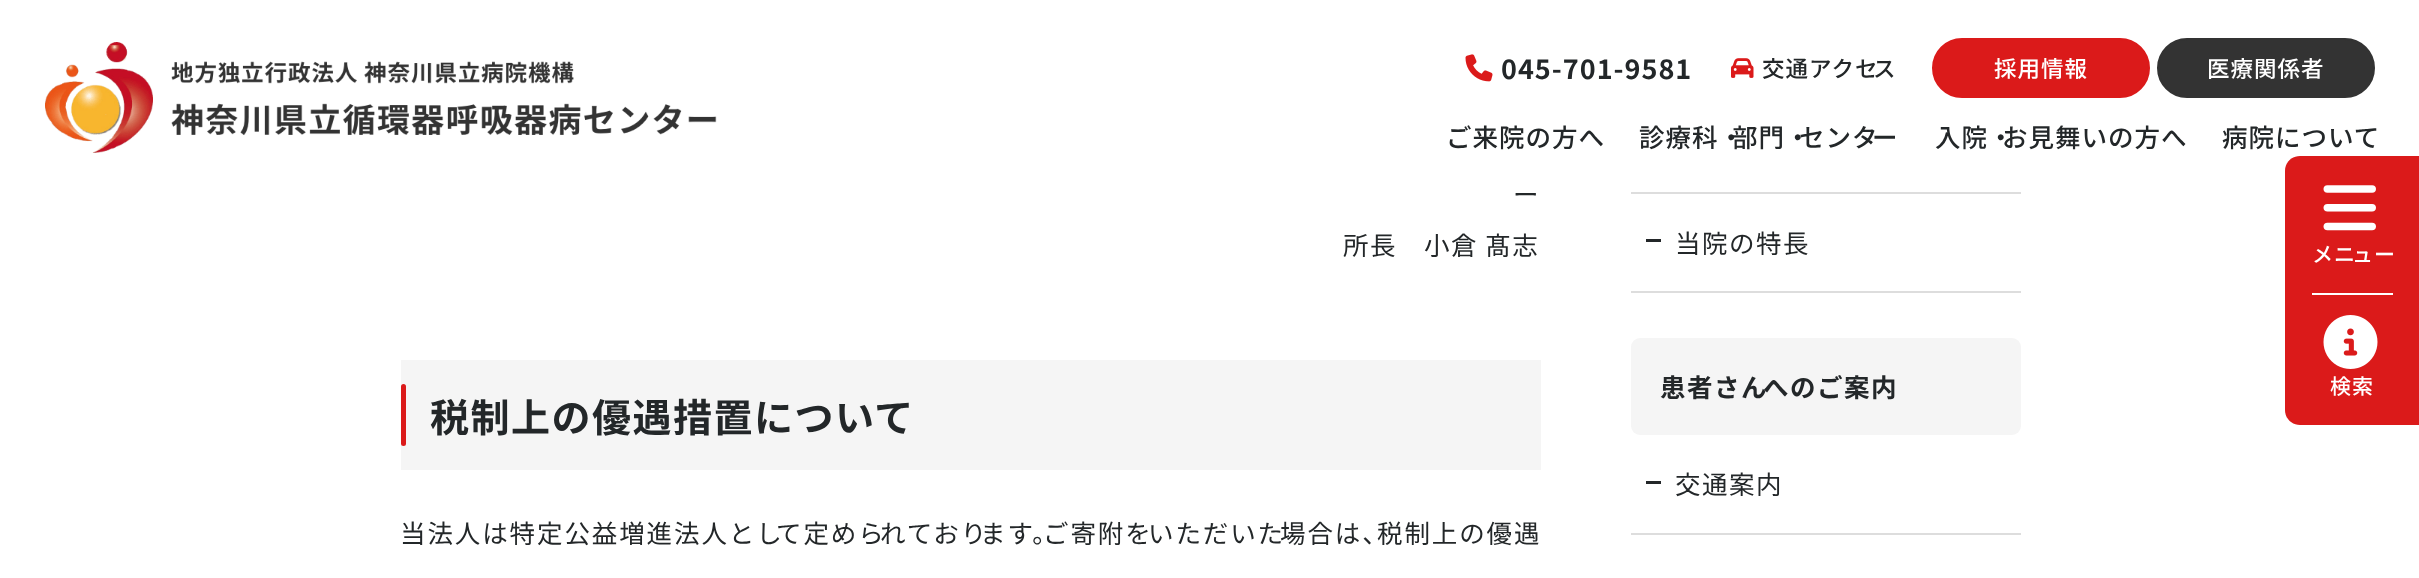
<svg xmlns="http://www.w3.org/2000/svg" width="2419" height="578">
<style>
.a{font:bold 27px Noto Sans JP;letter-spacing:1px;fill:#232729}
.b{font:500 22.5px Noto Sans JP;letter-spacing:1px;fill:#232729}
.c{font:500 22.5px Noto Sans JP;letter-spacing:1px;fill:#fff}
.d{font:500 25.5px Noto Sans JP;letter-spacing:1px;fill:#232729}
.e{font:25.5px Noto Sans JP;letter-spacing:1.5px;fill:#232729}
.f{font:bold 39px Noto Sans JP;letter-spacing:1.5px;fill:#232729}
.g{font:25.5px Noto Sans JP;letter-spacing:1.9px;fill:#232729}
.h{font:bold 25.5px Noto Sans JP;letter-spacing:1.5px;fill:#232729}
.i{font:500 21px Noto Sans JP;letter-spacing:1px;fill:#fff}
</style>
<rect width="100%" height="100%" fill="#fff"/>
<image href="1.png" x="45" y="42" width="672" height="111"/>
<image href="2.png" x="1465" y="54" width="28" height="28"/>
<image href="3.png" x="1731" y="58" width="23" height="20"/>
<rect fill="#db1a1a" stroke="#db1a1a" stroke-width="2" x="1933" y="39" width="216" height="58" rx="29"/>
<rect fill="#333" stroke="#333" stroke-width="2" x="2158" y="39" width="216" height="58" rx="29"/>
<path fill="#f5f5f5" d="M401 360h1140v110H401z"/>
<rect fill="#db1a1a" x="401" y="384" width="5" height="62" rx="2.5"/>
<path fill="#ddd" d="M1631 192h390v2H1631z"/>
<path fill="#ddd" d="M1631 291h390v2H1631z"/>
<path fill="#232729" d="M1646 239h15v3H1646z"/>
<rect fill="#f5f5f5" x="1631" y="338" width="390" height="97" rx="9"/>
<path fill="#ddd" d="M1631 533h390v2H1631z"/>
<path fill="#232729" d="M1646 481h15v3H1646z"/>
<path fill="#db1a1a" d="M2300 156h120v269h-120c-8.5 0-15-6.5-15-15v-239c0-8.5 6.5-15 15-15z"/>
<path fill="#fff" d="M2312 293h81v2H2312z"/>
<image href="4.png" x="2323" y="185" width="53" height="46"/>
<image href="5.png" x="2323" y="315" width="55" height="54"/>
<text class="a" x="1501" y="79">045-701-9581</text>
<text class="b" x="1762" y="77">交通アクセ</text>
<text class="b" x="1873" y="77">ス</text>
<text class="c" x="1994" y="77">採用情報</text>
<text class="c" x="2207" y="77">医療関係者</text>
<text class="d" x="1446" y="147">ご来院の方へ</text>
<text class="d" x="1639" y="147">診療科・</text>
<text class="d" x="1732" y="147">部門・</text>
<text class="d" x="1799" y="147">センタ</text>
<text class="d" x="1872" y="147">ー</text>
<text class="d" x="1935" y="147">入院・</text>
<text class="d" x="2002" y="147">お見舞いの方へ</text>
<text class="d" x="2222" y="147">病院について</text>
<text class="e" x="1513" y="204">ー</text>
<text class="e" x="1343" y="255">所長　小倉 髙志</text>
<text class="f" x="430" y="432">税制上の優遇措置について</text>
<text class="g" x="400" y="543">当法人は特定公益増進法人とし</text>
<text class="g" x="776" y="543">て定めら</text>
<text class="g" x="880" y="543">れており</text>
<text class="g" x="980" y="543">ます。</text>
<text class="g" x="1043" y="543">ご寄附を</text>
<text class="g" x="1148" y="543">いただいた</text>
<text class="g" x="1280" y="543">場合は、</text>
<text class="g" x="1377" y="543">税制上の優遇</text>
<text class="e" x="1675" y="253">当院の特長</text>
<text class="h" x="1660" y="397">患者さん</text>
<text class="h" x="1763" y="397">へのご案内</text>
<text class="e" x="1675" y="494">交通案内</text>
<text class="i" x="2312" y="262">メニ</text>
<text class="i" x="2352" y="262">ュー</text>
<text class="i" x="2330" y="394">検索</text>
</svg>
